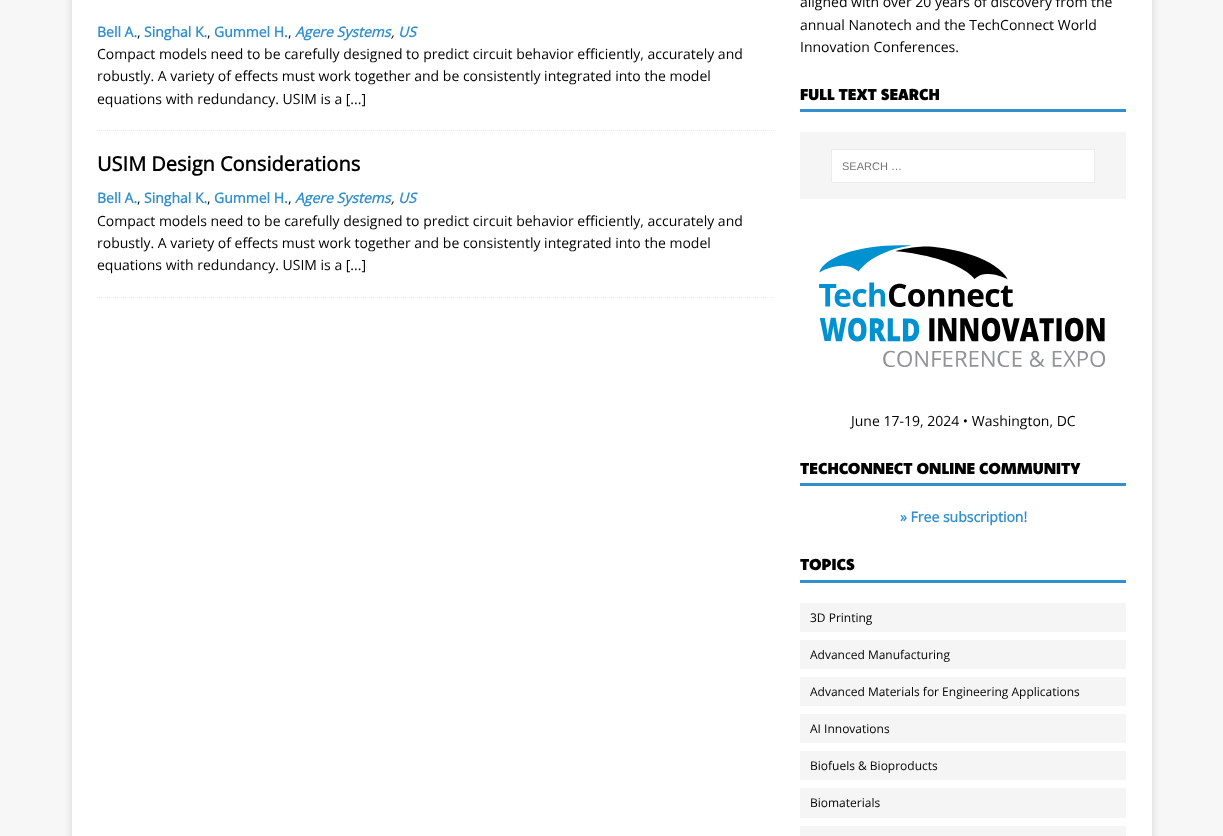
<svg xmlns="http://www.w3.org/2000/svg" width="1223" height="836">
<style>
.a{font:bold 14px Open Sans;fill:#3390cf}
.b{font:14px Open Sans;fill:#000}
.c{font:italic bold 14px Open Sans;fill:#3390cf}
.d{font:italic 14px Open Sans;fill:#000}
.e{font:bold 20px Open Sans;fill:#000}
.f{font:900 16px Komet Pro;fill:#000}
.g{font:11px Liberation Sans;fill:#757575}
.h{font:12px Open Sans;fill:#000}
</style>
<rect width="100%" height="100%" fill="#f7f7f7"/>
<path fill="#3232322b" filter="blur(5px)" d="M72 -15h1080v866H72z"/>
<path fill="#fff" d="M72 0h1080v836H72z"/>
<path fill="none" stroke="#ebebeb" stroke-dasharray="1 1" d="M97 130.5h678"/>
<path fill="none" stroke="#ebebeb" stroke-dasharray="1 1" d="M97 297.5h678"/>
<path fill="#3390cf" d="M800 109h326v3H800z"/>
<path fill="#f5f5f5" d="M800 132h326v67H800z"/>
<path fill="#fff" stroke="#ebebeb" d="M831.5 149.5h263v33H831.5z"/>
<image href="1.png" x="819" y="245" width="287" height="122"/>
<path fill="#3390cf" d="M800 483h326v3H800z"/>
<path fill="#3390cf" d="M800 580h326v3H800z"/>
<path fill="#f5f5f5" d="M800 603h326v29H800z"/>
<path fill="#f5f5f5" d="M800 640h326v29H800z"/>
<path fill="#f5f5f5" d="M800 677h326v29H800z"/>
<path fill="#f5f5f5" d="M800 714h326v29H800z"/>
<path fill="#f5f5f5" d="M800 751h326v29H800z"/>
<path fill="#f5f5f5" d="M800 788h326v30H800z"/>
<path fill="#f5f5f5" d="M800 826h326v10H800z"/>
<text class="a" x="97" y="37">Bell A.</text>
<text class="b" x="137" y="37">,</text>
<text class="a" x="144" y="37">Singhal K.</text>
<text class="b" x="207" y="37">,</text>
<text class="a" x="214" y="37">Gummel H.</text>
<text class="b" x="288" y="37">,</text>
<text class="c" x="295" y="37">Agere Systems</text>
<text class="c" x="398" y="37">US</text>
<text class="d" x="391" y="37">,</text>
<text class="b" x="97" y="59">Compact models need to be carefully designed to predict circuit behavior efficiently, accurately and</text>
<text class="b" x="97" y="81">robustly. A variety of effects must work together and be consistently integrated into the model</text>
<text class="b" x="97" y="104">equations with redundancy. USIM is a [...]</text>
<text class="e" x="97" y="171">USIM Design Considerations</text>
<text class="a" x="97" y="203">Bell A.</text>
<text class="b" x="137" y="203">,</text>
<text class="a" x="144" y="203">Singhal K.</text>
<text class="b" x="207" y="203">,</text>
<text class="a" x="214" y="203">Gummel H.</text>
<text class="b" x="288" y="203">,</text>
<text class="c" x="295" y="203">Agere Systems</text>
<text class="c" x="398" y="203">US</text>
<text class="d" x="391" y="203">,</text>
<text class="b" x="97" y="226">Compact models need to be carefully designed to predict circuit behavior efficiently, accurately and</text>
<text class="b" x="97" y="248">robustly. A variety of effects must work together and be consistently integrated into the model</text>
<text class="b" x="97" y="270">equations with redundancy. USIM is a [...]</text>
<text class="b" x="800" y="7">aligned with over 20 years of discovery from the</text>
<text class="b" x="800" y="30">annual Nanotech and the TechConnect World</text>
<text class="b" x="800" y="52">Innovation Conferences.</text>
<text class="f" x="800" y="100">FULL TEXT SEARCH</text>
<text class="g" x="842" y="170">SEARCH …</text>
<text class="b" x="851" y="426">June 17-19, 2024 • Washington, DC</text>
<text class="f" x="800" y="474">TECHCONNECT ONLINE COMMUNITY</text>
<text class="a" x="900" y="522">» Free subscription!</text>
<text class="f" x="800" y="570">TOPICS</text>
<text class="h" x="810" y="622">3D Printing</text>
<text class="h" x="810" y="659">Advanced Manufacturing</text>
<text class="h" x="810" y="696">Advanced Materials for Engineering Applications</text>
<text class="h" x="810" y="733">AI Innovations</text>
<text class="h" x="810" y="770">Biofuels &amp; Bioproducts</text>
<text class="h" x="810" y="807">Biomaterials</text>
</svg>
